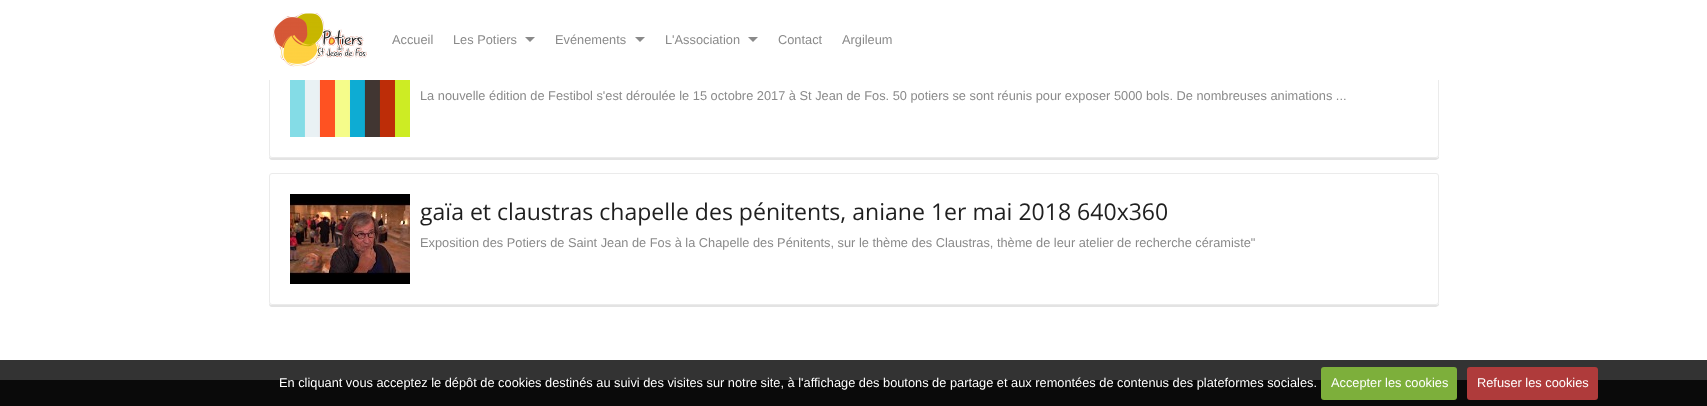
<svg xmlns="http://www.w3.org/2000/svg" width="1707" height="406">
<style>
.a{font:12.8px Liberation Sans;fill:#8a8a8a}
.b{font:23.05px Open Sans;fill:#1f1f1f}
.c{font:12.8px Liberation Sans;fill:#fff}
</style>
<rect width="100%" height="100%" fill="#fff"/>
<path fill="#333" d="M0 360h1707v20H0z"/>
<path fill="#e3e3e3" d="M269 155c0 2 0 5 3 5h1164l2-1l1-1v-3c0 2-1 3-3 3h-1164c-2 0-3-1-3-3z"/>
<rect fill="#fff" stroke="#ebebeb" x="269.5" y="26.5" width="1169" height="131" rx="2.5"/>
<path fill="#fff" d="M269 26h1170v54H269z"/>
<image href="1.png" x="273" y="12" width="94" height="55"/>
<path fill="#8a8a8a" d="M525 37h10l-5 5z"/>
<path fill="#8a8a8a" d="M635 37h10l-5 5z"/>
<path fill="#8a8a8a" d="M748 37h10l-5 5z"/>
<image href="2.png" x="290" y="80" width="120" height="57"/>
<path fill="#e3e3e3" d="M269 302c0 2 0 5 3 5h1164l2-1l1-1v-3c0 2-1 3-3 3h-1164c-2 0-3-1-3-3z"/>
<rect fill="#fff" stroke="#ebebeb" x="269.5" y="173.5" width="1169" height="131" rx="2.5"/>
<image href="3.png" x="290" y="194" width="120" height="90"/>
<path fill="#0a0a0a" d="M0 380h1707v26H0z"/>
<rect fill="#7daf3b" x="1321" y="367" width="136" height="33" rx="3"/>
<rect fill="#af3b3b" x="1467" y="367" width="131" height="33" rx="3"/>
<text class="a" x="392" y="44">Accueil</text>
<text class="a" x="453" y="44">Les Potiers</text>
<text class="a" x="555" y="44">Evénements</text>
<text class="a" x="665" y="44">L'Association</text>
<text class="a" x="778" y="44">Contact</text>
<text class="a" x="842" y="44">Argileum</text>
<text class="a" x="420" y="100">La nouvelle édition de Festibol s'est déroulée le 15 octobre 2017 à St Jean de Fos. 50 potiers se sont réunis pour exposer 5000 bols. De nombreuses animations ...</text>
<text class="b" x="420" y="220">gaïa et claustras chapelle des pénitents, aniane 1er mai 2018 640x360</text>
<text class="a" x="420" y="247">Exposition des Potiers de Saint Jean de Fos à la Chapelle des Pénitents, sur le thème des Claustras, thème de leur atelier de recherche céramiste"</text>
<text class="c" x="279" y="387">En cliquant vous acceptez le dépôt de cookies destinés au suivi des visites sur notre site, à l'affichage des boutons de partage et aux remontées de contenus des plateformes sociales.</text>
<text class="c" x="1331" y="387">Accepter les cookies</text>
<text class="c" x="1477" y="387">Refuser les cookies</text>
</svg>
